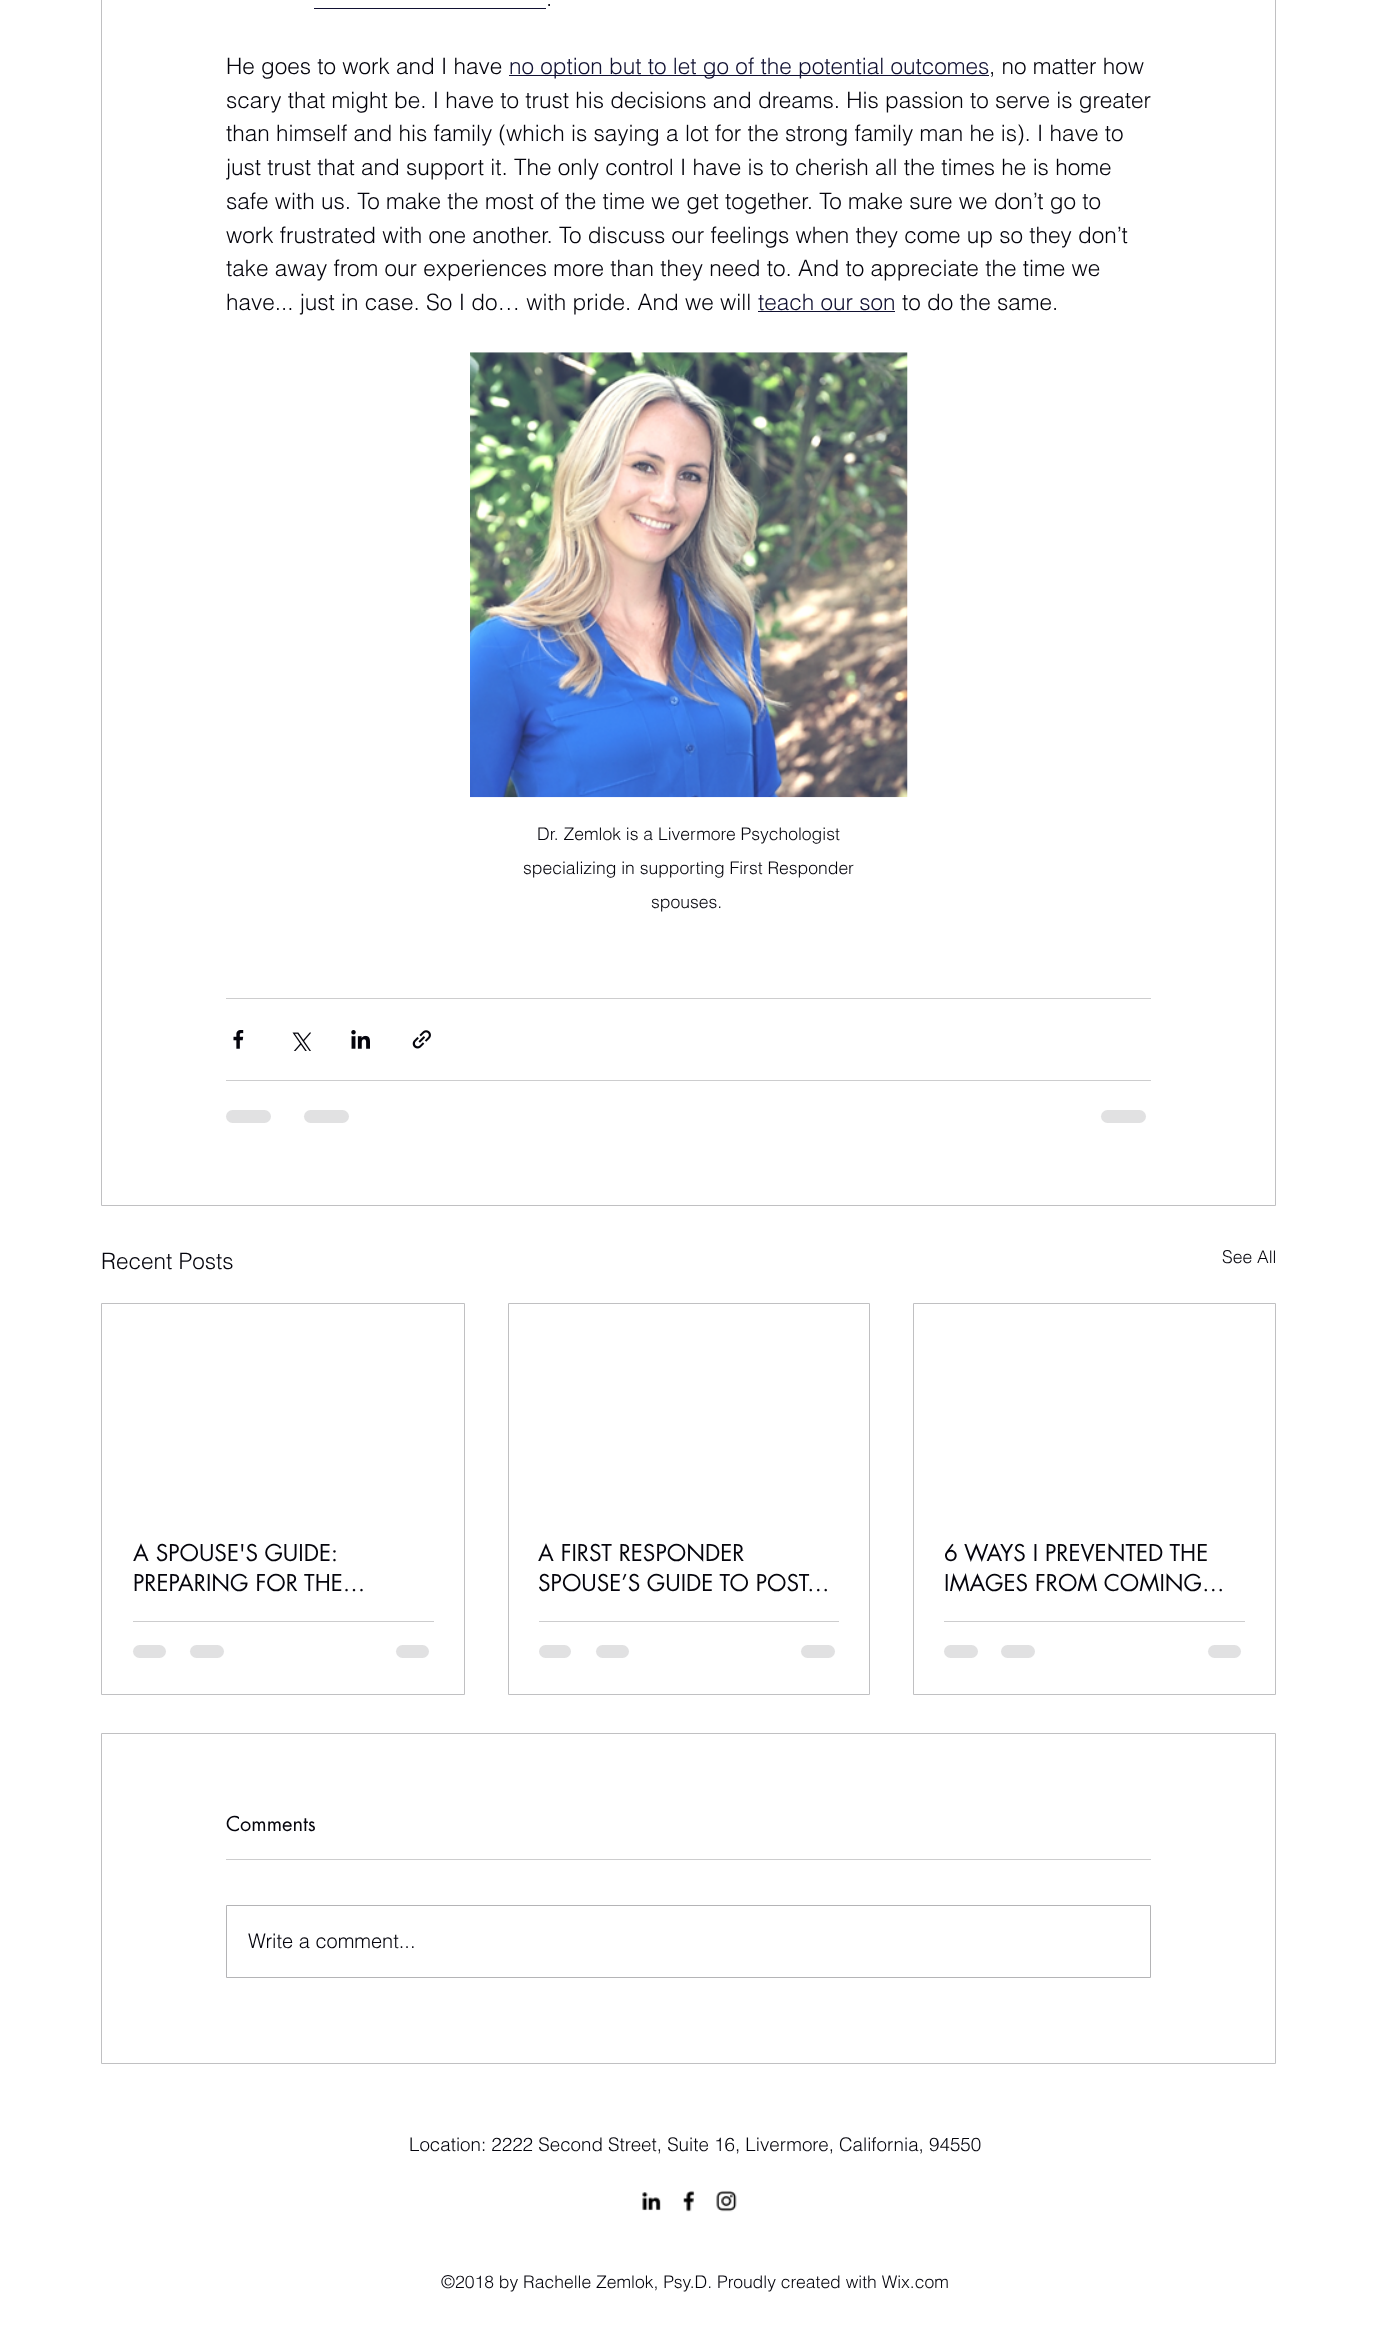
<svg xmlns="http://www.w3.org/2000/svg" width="1377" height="2338">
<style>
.a{font:300 22.5px helvetica;fill:#04040c}
.b{font:300 22.5px helvetica;fill:#111132}
.c{font:300 17.5px helvetica;fill:#04040c}
.d{font:22.5px futura;fill:#04040c}
.e{font:20px futura;fill:#04040c}
.f{font:300 20px helvetica;fill:#04040c}
.g{font:300 18.75px helvetica;fill:#04040c}
</style>
<rect width="100%" height="100%" fill="#fff"/>
<path fill="none" stroke="#c0c0c2" d="M101.5 -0.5h1174v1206H101.5z"/>
<path fill="#111132" d="M314 8h232v1H314z"/>
<path fill="#111132" d="M509 75h480v1H509z"/>
<path fill="#111132" d="M758 311h137v1H758z"/>
<image href="1.png" x="470" y="352" width="438" height="446"/>
<path fill="#cdcdce" d="M226 998h925v1H226z"/>
<image href="2.png" x="233" y="1030" width="11" height="19"/>
<image href="3.png" x="292" y="1032" width="19" height="19"/>
<image href="4.png" x="351" y="1030" width="19" height="19"/>
<image href="5.png" x="412" y="1030" width="19" height="19"/>
<path fill="#cdcdce" d="M226 1080h925v1H226z"/>
<rect fill="#e1e1e2" x="226" y="1110" width="45" height="13" rx="6.5"/>
<rect fill="#e1e1e2" x="304" y="1110" width="45" height="13" rx="6.5"/>
<rect fill="#e1e1e2" x="1101" y="1110" width="45" height="13" rx="6.5"/>
<path fill="none" stroke="#c0c0c2" d="M101.5 1303.5h363v391H101.5z"/>
<path fill="#cdcdce" d="M133 1621h301v1H133z"/>
<rect fill="#e1e1e2" x="133" y="1645" width="33" height="13" rx="6.5"/>
<rect fill="#e1e1e2" x="190" y="1645" width="34" height="13" rx="6.5"/>
<rect fill="#e1e1e2" x="396" y="1645" width="33" height="13" rx="6.5"/>
<path fill="none" stroke="#c0c0c2" d="M508.5 1303.5h361v391H508.5z"/>
<path fill="#cdcdce" d="M539 1621h300v1H539z"/>
<rect fill="#e1e1e2" x="539" y="1645" width="32" height="13" rx="6.5"/>
<rect fill="#e1e1e2" x="596" y="1645" width="33" height="13" rx="6.5"/>
<rect fill="#e1e1e2" x="801" y="1645" width="34" height="13" rx="6.5"/>
<path fill="none" stroke="#c0c0c2" d="M913.5 1303.5h362v391H913.5z"/>
<path fill="#cdcdce" d="M944 1621h301v1H944z"/>
<rect fill="#e1e1e2" x="944" y="1645" width="34" height="13" rx="6.5"/>
<rect fill="#e1e1e2" x="1001" y="1645" width="34" height="13" rx="6.5"/>
<rect fill="#e1e1e2" x="1208" y="1645" width="33" height="13" rx="6.5"/>
<path fill="none" stroke="#c0c0c2" d="M101.5 1733.5h1174v330H101.5z"/>
<path fill="#cdcdce" d="M226 1859h925v1H226z"/>
<path fill="none" stroke="#b4b4b6" d="M226.5 1905.5h924v72H226.5z"/>
<image href="6.png" x="642" y="2192" width="19" height="19"/>
<image href="7.png" x="683" y="2190" width="12" height="22"/>
<image href="8.png" x="716" y="2190" width="21" height="22"/>
<text class="a" x="546" y="6">.</text>
<text class="a" x="226" y="74">He goes to work and I have</text>
<text class="b" x="509" y="74">no option but to let go of the potential outcomes</text>
<text class="a" x="989" y="74">, no matter how</text>
<text class="a" x="226" y="108">scary that might be. I have to trust his decisions and dreams. His passion to serve is greater</text>
<text class="a" x="226" y="141">than himself and his family (which is saying a lot for the strong family man he is). I have to</text>
<text class="a" x="226" y="175">just trust that and support it. The only control I have is to cherish all the times he is home</text>
<text class="a" x="226" y="209">safe with us. To make the most of the time we get together. To make sure we don’t go to</text>
<text class="a" x="226" y="243">work frustrated with one another. To discuss our feelings when they come up so they don’t</text>
<text class="a" x="226" y="276">take away from our experiences more than they need to. And to appreciate the time we</text>
<text class="a" x="226" y="310">have... just in case. So I do… with pride. And we will</text>
<text class="b" x="758" y="310">teach our son</text>
<text class="a" x="902" y="310">to do the same.</text>
<text class="c" x="537" y="840">Dr. Zemlok is a Livermore Psychologist</text>
<text class="c" x="523" y="874">specializing in supporting First Responder</text>
<text class="c" x="651" y="908">spouses.</text>
<text class="a" x="101" y="1269">Recent Posts</text>
<text class="c" x="1222" y="1263">See All</text>
<text class="d" x="133" y="1561">A SPOUSE'S GUIDE:</text>
<text class="d" x="133" y="1591">PREPARING FOR THE…</text>
<text class="d" x="538" y="1561">A FIRST RESPONDER</text>
<text class="d" x="538" y="1591">SPOUSE’S GUIDE TO POST…</text>
<text class="d" x="944" y="1561">6 WAYS I PREVENTED THE</text>
<text class="d" x="944" y="1591">IMAGES FROM COMING…</text>
<text class="e" x="226" y="1831">Comments</text>
<text class="f" x="248" y="1948">Write a comment...</text>
<text class="g" x="409" y="2151">Location: 2222 Second Street, Suite 16, Livermore, California, 94550</text>
<text class="c" x="441" y="2288">©2018 by Rachelle Zemlok, Psy.D. Proudly created with Wix.com</text>
</svg>
